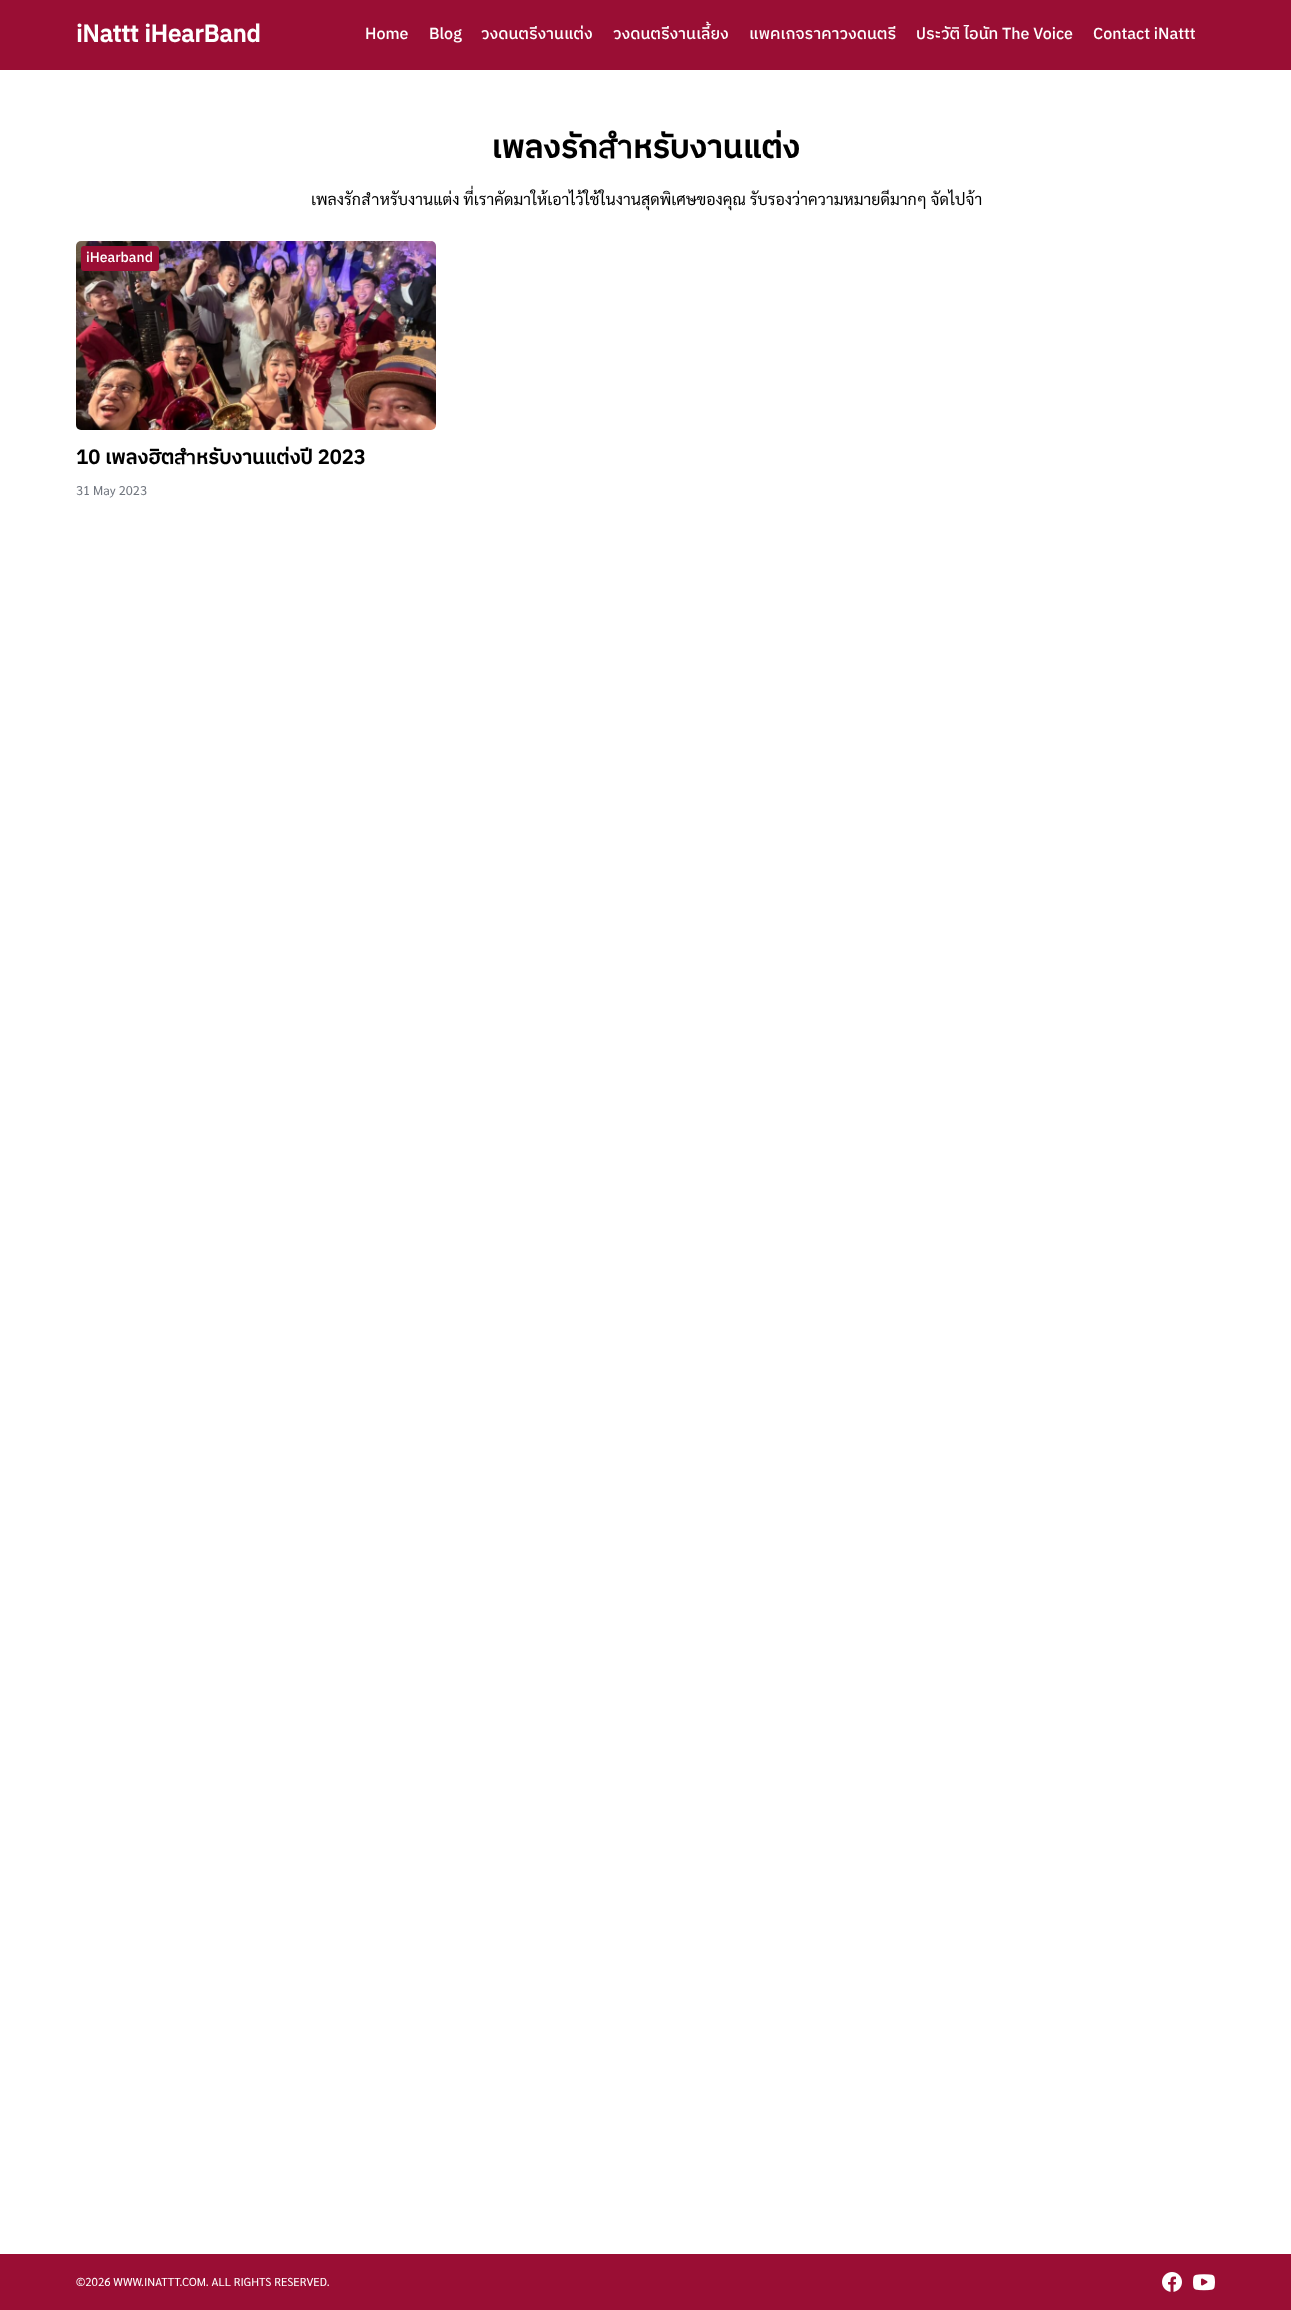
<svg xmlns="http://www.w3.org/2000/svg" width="1291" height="2310">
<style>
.a{font:bold 24px IBM Plex Sans Thai;fill:#fff}
.b{font:500 16px IBM Plex Sans Thai;fill:#fff}
.c{font:bold 32px IBM Plex Sans Thai;fill:#000}
.d{font:16px Sarabun;fill:#000}
.e{font:500 14px IBM Plex Sans Thai;fill:#fff}
.f{font:bold 20px IBM Plex Sans Thai;fill:#000}
.g{font:12.75px Sarabun;fill:#71767f}
.h{font:11.5px Sarabun;fill:#fff}
</style>
<rect width="100%" height="100%" fill="#fff"/>
<path fill="#9a0e34" d="M0 0h1291v70H0z"/>
<image href="1.png" x="76" y="241" width="360" height="189"/>
<rect fill="#9a0e34" x="81" y="246" width="78" height="25" rx="3"/>
<path fill="#9a0e34" d="M0 2254h1291v56H0z"/>
<image href="2.png" x="1162" y="2272" width="20" height="20"/>
<image href="3.png" x="1193" y="2274" width="22" height="17"/>
<text class="a" x="76" y="42">iNattt iHearBand</text>
<text class="b" x="365" y="39">Home</text>
<text class="b" x="429" y="39">Blog</text>
<text class="b" x="481" y="39">วงดนตรีงานแต่ง</text>
<text class="b" x="613" y="39">วงดนตรีงานเลี้ยง</text>
<text class="b" x="749" y="39">แพคเกจราคาวงดนตรี</text>
<text class="b" x="916" y="39">ประวัติ ไอนัท The Voice</text>
<text class="b" x="1093" y="39">Contact iNattt</text>
<text class="c" x="491" y="158">เพลงรักสำหรับงานแต่ง</text>
<text class="d" x="311" y="205">เพลงรักสำหรับงานแต่ง ที่เราคัดมาให้เอาไว้ใช้ในงานสุดพิเศษของคุณ รับรองว่าความหมายดีมากๆ จัดไปจ้า</text>
<text class="e" x="86" y="262">iHearband</text>
<text class="f" x="76" y="464">10 เพลงฮิตสำหรับงานแต่งปี 2023</text>
<text class="g" x="76" y="495">31 May 2023</text>
<text class="h" x="76" y="2286">©2026 WWW.INATTT.COM. ALL RIGHTS RESERVED.</text>
</svg>
